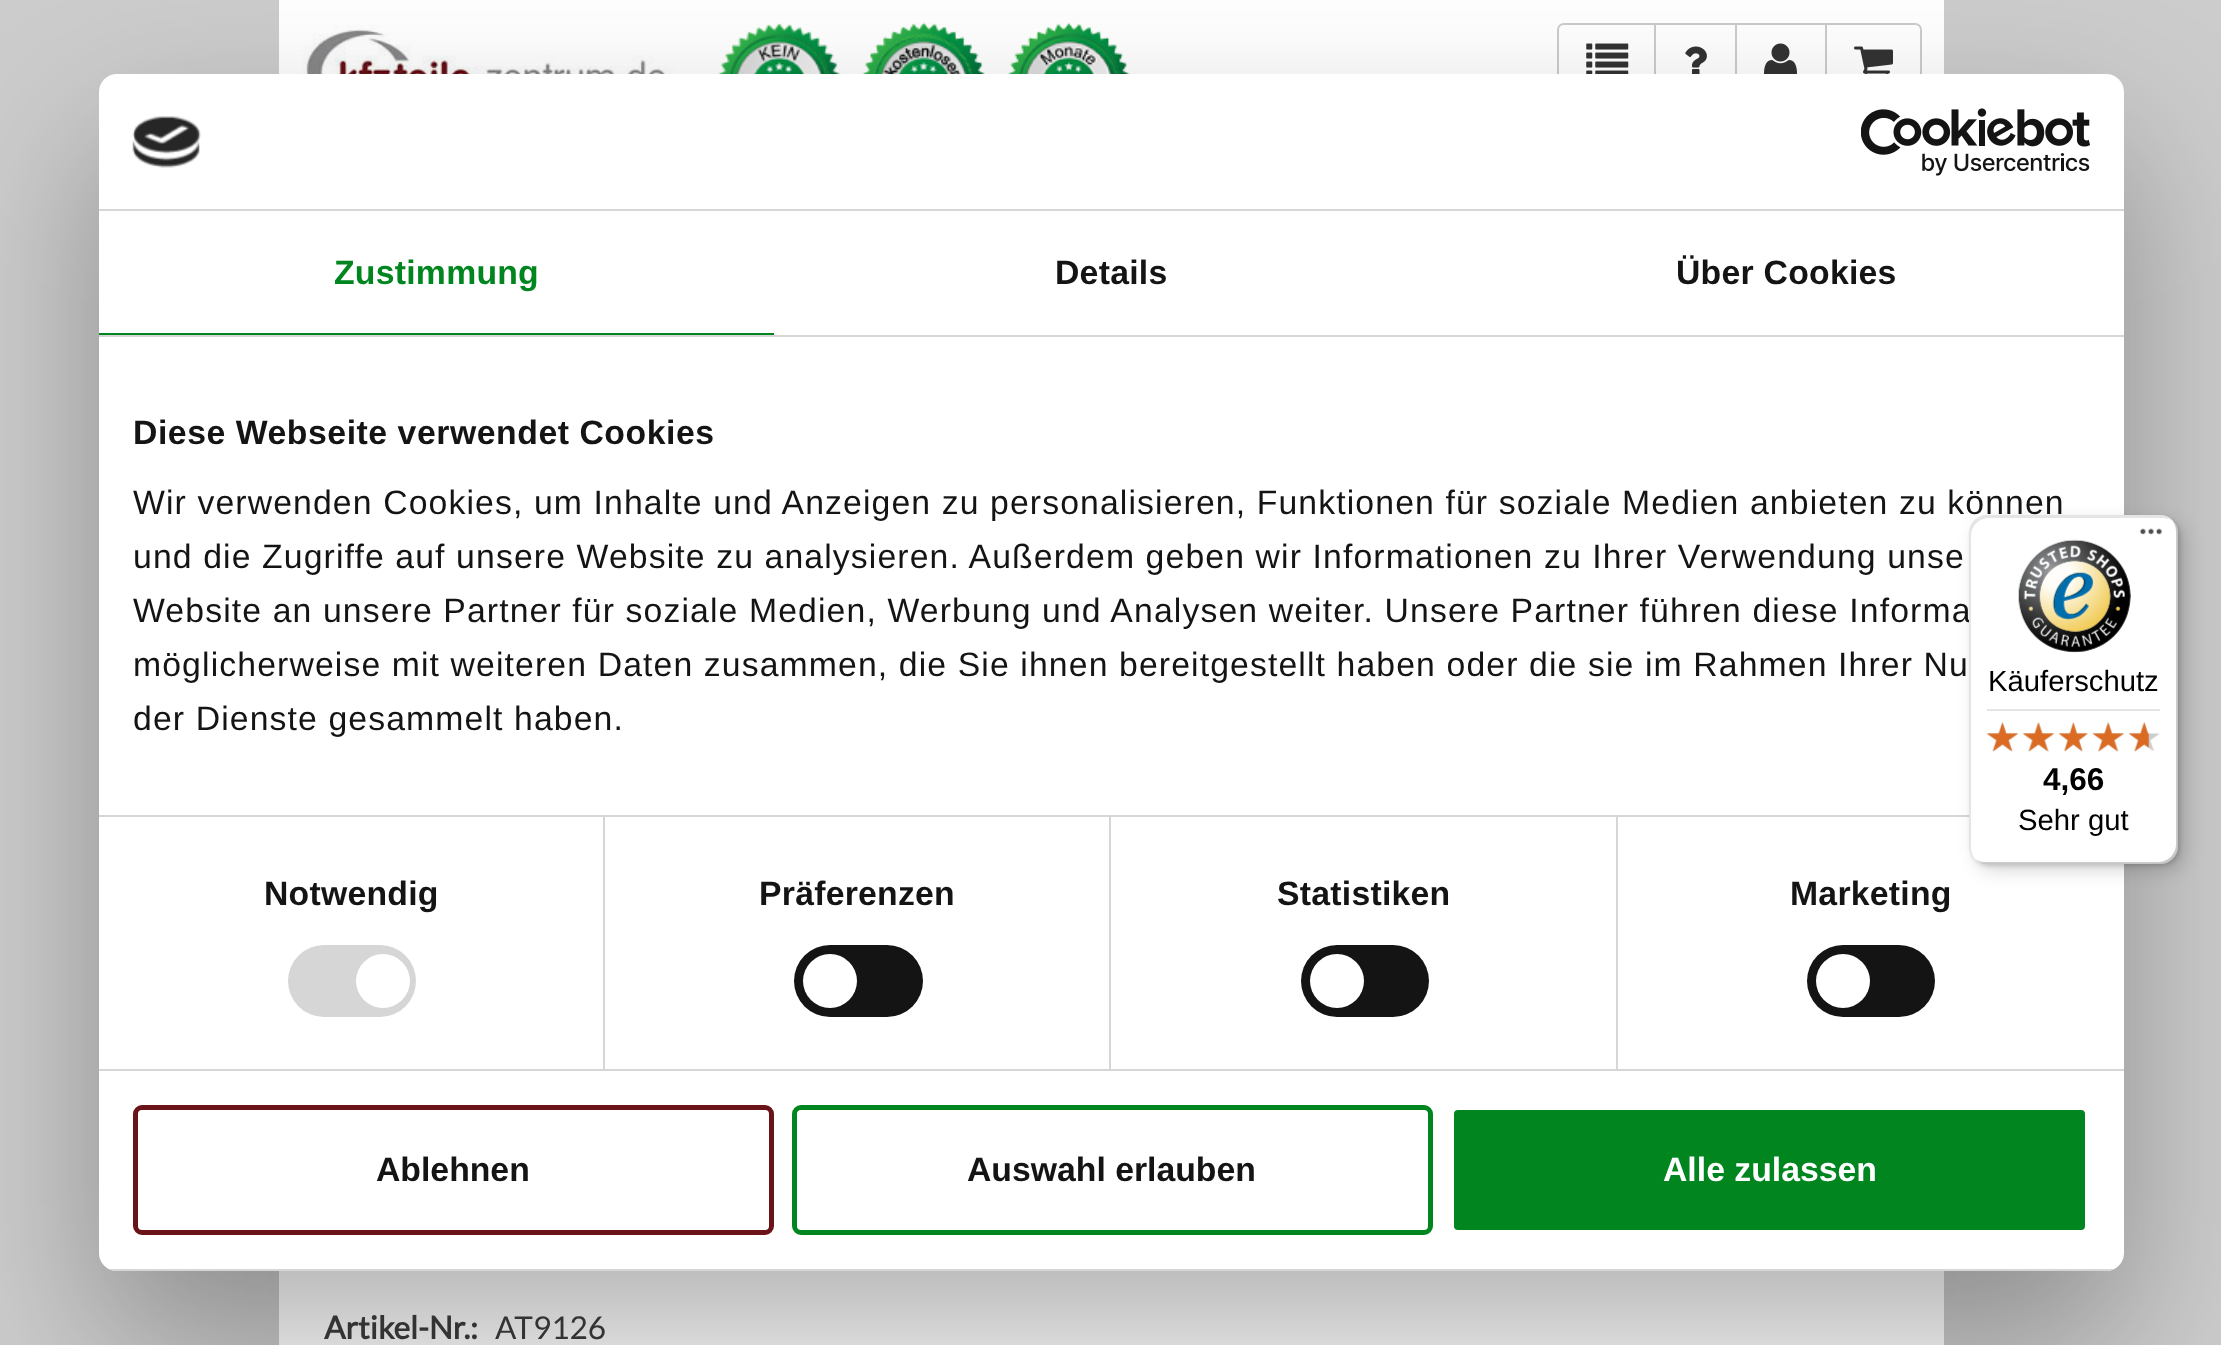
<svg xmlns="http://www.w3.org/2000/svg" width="2221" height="1345">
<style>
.a{font:bold 33.75px Liberation Sans;letter-spacing:0.25px;fill:#00851f}
.b{font:bold 33.75px Liberation Sans;letter-spacing:0.25px;fill:#141414}
.c{font:bold 33.75px Liberation Sans;letter-spacing:0.55px;fill:#141414}
.d{font:33.75px Liberation Sans;letter-spacing:1.12px;fill:#141414}
.e{font:bold 33.75px Liberation Sans;fill:#141414}
.f{font:bold 33.75px Liberation Sans;fill:#fff}
.g{font:29.25px Liberation Sans;fill:#000}
.h{font:bold 31.5px Liberation Sans;fill:#000}
.i{font:bold 31.5px Lato;fill:#333}
.j{font:31.5px Lato;fill:#333}
</style>
<defs>
<clipPath id="clip1"><rect x="99" y="74" width="2025" height="1197" rx="18"/></clipPath>
</defs>
<rect width="100%" height="100%" fill="#ccc"/>
<path fill="#fff" d="M279 0h1665v74H279z"/>
<image href="1.png" x="302" y="25" width="371" height="49"/>
<image href="2.png" x="718" y="22" width="412" height="52"/>
<path fill="none" stroke="#ccc" stroke-width="2" d="M1564 24h91v74h-91c-3.5 0-6-2.5-6-6v-62c0-3.5 2.5-6 6-6z"/>
<image href="3.png" x="1586" y="43" width="43" height="31"/>
<path fill="none" stroke="#ccc" stroke-width="2" d="M1655 24h81v74H1655z"/>
<image href="4.png" x="1685" y="46" width="22" height="28"/>
<path fill="none" stroke="#ccc" stroke-width="2" d="M1736 24h90v74H1736z"/>
<image href="5.png" x="1764" y="43" width="33" height="31"/>
<path fill="#fff" stroke="#ccc" stroke-width="2" d="M1826 24h89c3.5 0 6 2.5 6 6v62c0 3.5-2.5 6-6 6h-89z"/>
<image href="6.png" x="1854" y="46" width="39" height="28"/>
<path fill="#fff" d="M279 1271h1665v74H279z"/>
<rect fill="#0000004d" filter="blur(76.5px)" x="99" y="146" width="2025" height="1197" rx="18"/>
<rect fill="#fff" x="99" y="74" width="2025" height="1197" rx="18"/>
<path fill="#d6d6d6" d="M99 209h2025v2H99z"/>
<image href="7.png" x="132" y="116" width="69" height="52"/>
<image href="8.png" x="1861" y="108" width="229" height="68"/>
<path fill="#d6d6d6" d="M99 335h2025v2H99z"/>
<path fill="#00851f" d="M99 333h675v2H99z"/>
<path fill="#d6d6d6" d="M99 815h1870v2H99z"/>
<path fill="#d6d6d6" d="M99 1069h2025v2H99z"/>
<path fill="#d6d6d6" d="M603 817h2v252H603z"/>
<rect fill="#d6d6d6" x="288" y="945" width="128" height="72" rx="36"/>
<circle fill="#fff" cx="383" cy="981" r="27"/>
<path fill="#d6d6d6" d="M1109 817h2v252H1109z"/>
<rect fill="#141414" x="794" y="945" width="129" height="72" rx="36"/>
<circle fill="#fff" cx="830" cy="981" r="27"/>
<path fill="#d6d6d6" d="M1616 817h2v252H1616z"/>
<rect fill="#141414" x="1301" y="945" width="128" height="72" rx="36"/>
<circle fill="#fff" cx="1337" cy="981" r="27"/>
<rect fill="#141414" x="1807" y="945" width="128" height="72" rx="36"/>
<circle fill="#fff" cx="1843" cy="981" r="27"/>
<g clip-path="url(#clip1)">
<path fill="#d6d6d6" d="M109 1269h2005v2H109z"/>
</g>
<rect fill="none" stroke="#6a1319" stroke-width="5" x="135.5" y="1107.5" width="636" height="125" rx="6.5"/>
<rect fill="none" stroke="#00851f" stroke-width="5" x="794.5" y="1107.5" width="636" height="125" rx="6.5"/>
<rect fill="#00851f" stroke="#fff" stroke-width="5" x="1451.5" y="1107.5" width="636" height="125" rx="6.5"/>
<rect fill="#00000026" filter="blur(9px)" x="1976" y="522" width="209" height="349" rx="18"/>
<rect fill="#00000026" filter="blur(2px)" x="1971" y="518" width="209" height="348" rx="18"/>
<text class="a" x="334" y="284">Zustimmung</text>
<text class="b" x="1055" y="284">Details</text>
<text class="b" x="1676" y="284">Über Cookies</text>
<text class="c" x="133" y="444">Diese Webseite verwendet Cookies</text>
<text class="d" x="133" y="514">Wir verwenden Cookies, um Inhalte und Anzeigen zu personalisieren, Funktionen für soziale Medien anbieten zu können</text>
<text class="d" x="133" y="568">und die Zugriffe auf unsere Website zu analysieren. Außerdem geben wir Informationen zu Ihrer Verwendung unse</text>
<text class="d" x="133" y="622">Website an unsere Partner für soziale Medien, Werbung und Analysen weiter. Unsere Partner führen diese Informa</text>
<text class="d" x="133" y="676">möglicherweise mit weiteren Daten zusammen, die Sie ihnen bereitgestellt haben oder die sie im Rahmen Ihrer Nu</text>
<text class="d" x="133" y="730">der Dienste gesammelt haben.</text>
<text class="b" x="264" y="905">Notwendig</text>
<text class="b" x="759" y="905">Präferenzen</text>
<text class="b" x="1277" y="905">Statistiken</text>
<text class="b" x="1790" y="905">Marketing</text>
<text class="e" x="376" y="1181">Ablehnen</text>
<text class="e" x="967" y="1181">Auswahl erlauben</text>
<text class="f" x="1663" y="1181">Alle zulassen</text>
<rect fill="#fff" x="1969" y="515" width="209" height="349" rx="18"/>
<path fill="#0000001a" d="M1989 518h173c6 0 11 2 14 6c-3-5-9-9-16-9h-173c-10 0-18 8-18 18v313c0 5 2 10 6 14c-2-4-4-8-4-12v-312c0-10 8-18 18-18z"/>
<path fill="#00000033" d="M1975 859c3 3 7 5 12 5h173c10 0 18-8 18-18v-313c0-5-2-10-6-14c2 4 4 8 4 12v313c0 10-8 18-18 18h-174c-3 0-6-1-9-3z"/>
<path fill="#32323233" d="M1978 862c3 1 6 2 9 2h173c10 0 18-8 18-18v-313c0-5-2-10-5-13c2 3 4 7 4 12v313c0 10-8 18-18 18h-174c-2 0-5 0-7-1z"/>
<path fill="#ffffff4d" d="M1974 859c3 3 8 5 13 5h173c10 0 18-8 18-18v-313c0-5-2-10-5-13c2 3 4 7 4 12v313c0 10-8 18-18 18h-173c-5 0-9-2-12-4z"/>
<image href="9.png" x="2139" y="528" width="23" height="7"/>
<image href="10.png" x="2018" y="539" width="113" height="114"/>
<text class="g" x="1988" y="691">Käuferschutz</text>
<path fill="#e5e5e5" d="M1987 709h173v2H1987z"/>
<image href="16.png" x="1987" y="722" width="31" height="30"/>
<image href="11.png" x="1986" y="722" width="32" height="30"/>
<image href="17.png" x="2023" y="722" width="31" height="30"/>
<image href="12.png" x="2022" y="722" width="33" height="30"/>
<image href="18.png" x="2059" y="722" width="29" height="29"/>
<image href="13.png" x="2058" y="722" width="30" height="30"/>
<image href="19.png" x="2092" y="722" width="32" height="30"/>
<image href="14.png" x="2092" y="722" width="32" height="30"/>
<image href="20.png" x="2129" y="722" width="31" height="29"/>
<image href="15.png" x="2128" y="722" width="21" height="30"/>
<text class="h" x="2043" y="790">4,66</text>
<text class="g" x="2018" y="830">Sehr gut</text>
<text class="i" x="324" y="1339">Artikel-Nr.:</text>
<text class="j" x="495" y="1339">AT9126</text>
</svg>
